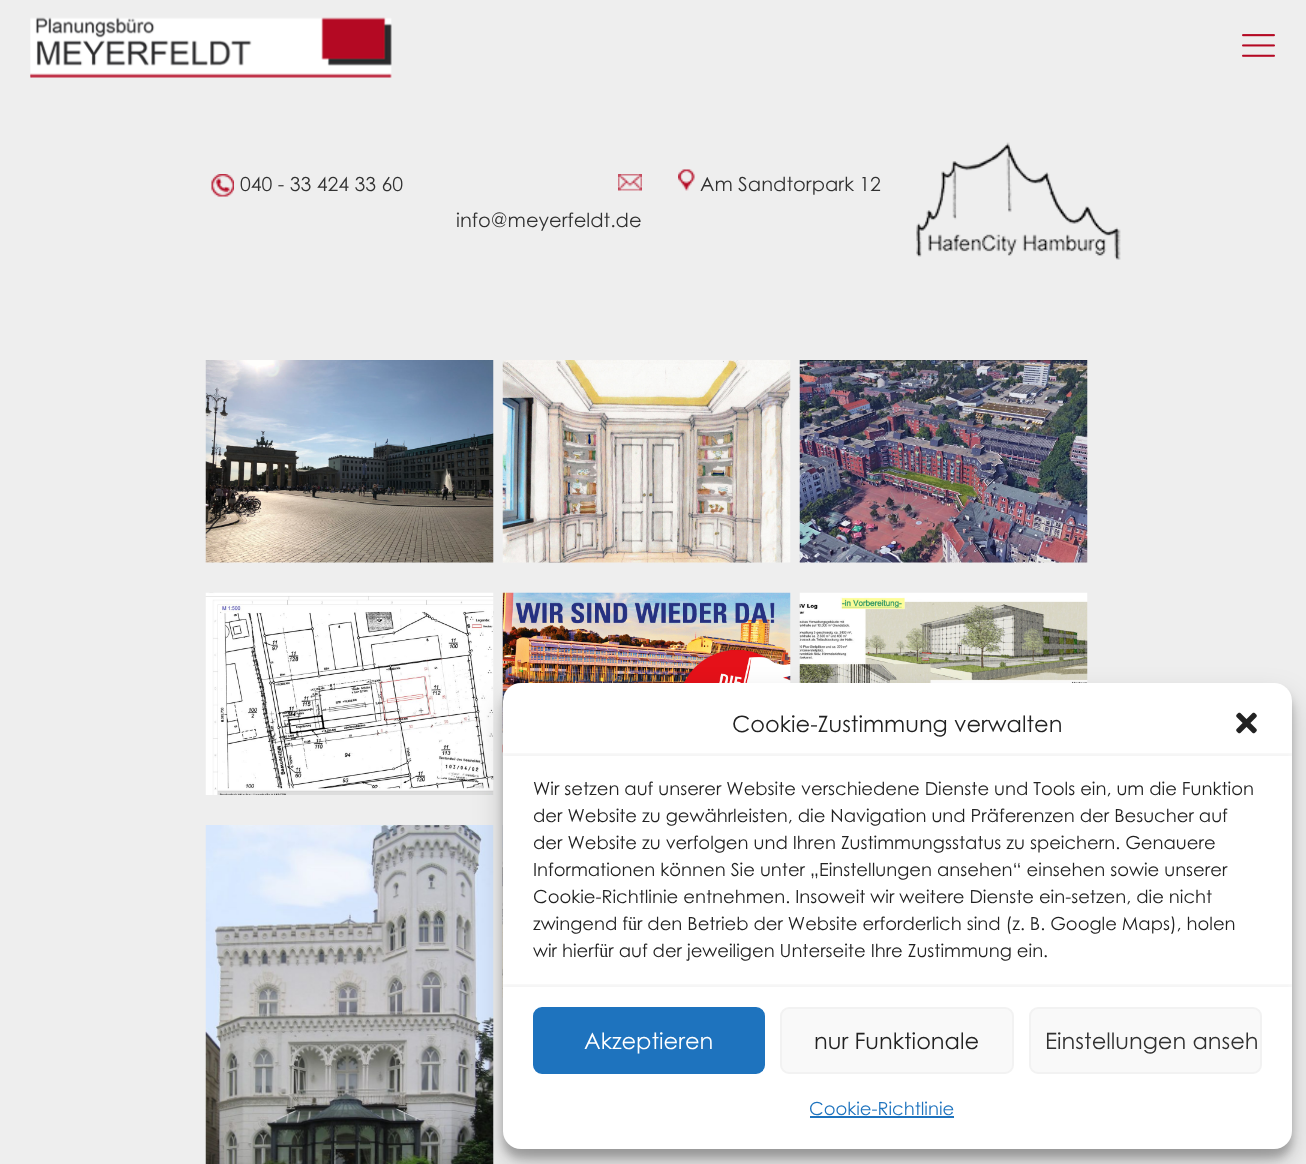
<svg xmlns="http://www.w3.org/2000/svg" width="1306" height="1164">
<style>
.a{font:19.5px Century Gothic;fill:#313131}
.b{font:22.5px Century Gothic;fill:#222}
.c{font:18px Century Gothic;fill:#222}
.d{font:22.5px Century Gothic;fill:#fff}
.e{font:22.5px Century Gothic;fill:#313131}
.f{font:18px Century Gothic;fill:#1e73be}
</style>
<defs>
<clipPath id="clip1"><path d="M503 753h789v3H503z"/></clipPath>
<clipPath id="clip2"><path d="M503 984h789v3H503z"/></clipPath>
</defs>
<rect width="100%" height="100%" fill="#eee"/>
<image href="1.png" x="30" y="17" width="362" height="61"/>
<image href="2.png" x="1242" y="34" width="33" height="23"/>
<image href="3.png" x="211" y="174" width="23" height="23"/>
<image href="4.png" x="678" y="169" width="17" height="22"/>
<image href="5.png" x="916" y="142" width="205" height="118"/>
<image href="6.png" x="618" y="174" width="24" height="17"/>
<image href="7.png" x="205" y="360" width="289" height="203"/>
<image href="8.png" x="502" y="360" width="289" height="203"/>
<image href="9.png" x="799" y="360" width="289" height="203"/>
<image href="10.png" x="205" y="592" width="289" height="203"/>
<image href="11.png" x="502" y="592" width="289" height="166"/>
<image href="12.png" x="799" y="592" width="289" height="91"/>
<image href="13.png" x="205" y="825" width="289" height="339"/>
<image href="14.png" x="502" y="825" width="1" height="173"/>
<rect fill="#0000003b" filter="blur(4.5px)" x="503" y="692" width="789" height="466" rx="18"/>
<rect fill="#00000030" filter="blur(15px)" x="503" y="698" width="789" height="466" rx="18"/>
<rect fill="#fff" x="503" y="683" width="789" height="466" rx="18"/>
<image href="15.png" x="1236" y="712" width="21" height="22"/>
<g clip-path="url(#clip1)">
<path fill="#0000000d" filter="blur(2px)" d="M503 753h789v5H503z"/>
</g>
<g clip-path="url(#clip2)">
<path fill="#0000000d" filter="blur(2px)" d="M503 984h789v5H503z"/>
</g>
<rect fill="#1e73be" stroke="#1e73be" stroke-width="2" x="534" y="1008" width="230" height="65" rx="8"/>
<rect fill="#f9f9f9" stroke="#f2f2f2" stroke-width="2" x="781" y="1008" width="232" height="65" rx="8"/>
<rect fill="#f9f9f9" stroke="#f2f2f2" stroke-width="2" x="1030" y="1008" width="231" height="65" rx="8"/>
<path fill="#1e73be" d="M810 1116h144v2H810z"/>
<text class="a" x="240" y="191">040 - 33 424 33 60</text>
<text class="a" x="700" y="191">Am Sandtorpark 12</text>
<text class="a" x="456" y="227">info@meyerfeldt.de</text>
<text class="b" x="732" y="732">Cookie-Zustimmung verwalten</text>
<text class="c" x="533" y="795">Wir setzen auf unserer Website verschiedene Dienste und Tools ein, um die Funktion</text>
<text class="c" x="533" y="822">der Website zu gewährleisten, die Navigation und Präferenzen der Besucher auf</text>
<text class="c" x="533" y="849">der Website zu verfolgen und Ihren Zustimmungsstatus zu speichern. Genauere</text>
<text class="c" x="533" y="876">Informationen können Sie unter „Einstellungen ansehen“ einsehen sowie unserer</text>
<text class="c" x="533" y="903">Cookie-Richtlinie entnehmen. Insoweit wir weitere Dienste ein-setzen, die nicht</text>
<text class="c" x="533" y="930">zwingend für den Betrieb der Website erforderlich sind (z. B. Google Maps), holen</text>
<text class="c" x="533" y="957">wir hierfür auf der jeweiligen Unterseite Ihre Zustimmung ein.</text>
<text class="d" x="584" y="1049">Akzeptieren</text>
<text class="b" x="814" y="1049">nur Funktionale</text>
<text class="e" x="1045" y="1049">Einstellungen anseh</text>
<text class="f" x="809" y="1115">Cookie-Richtlinie</text>
</svg>
